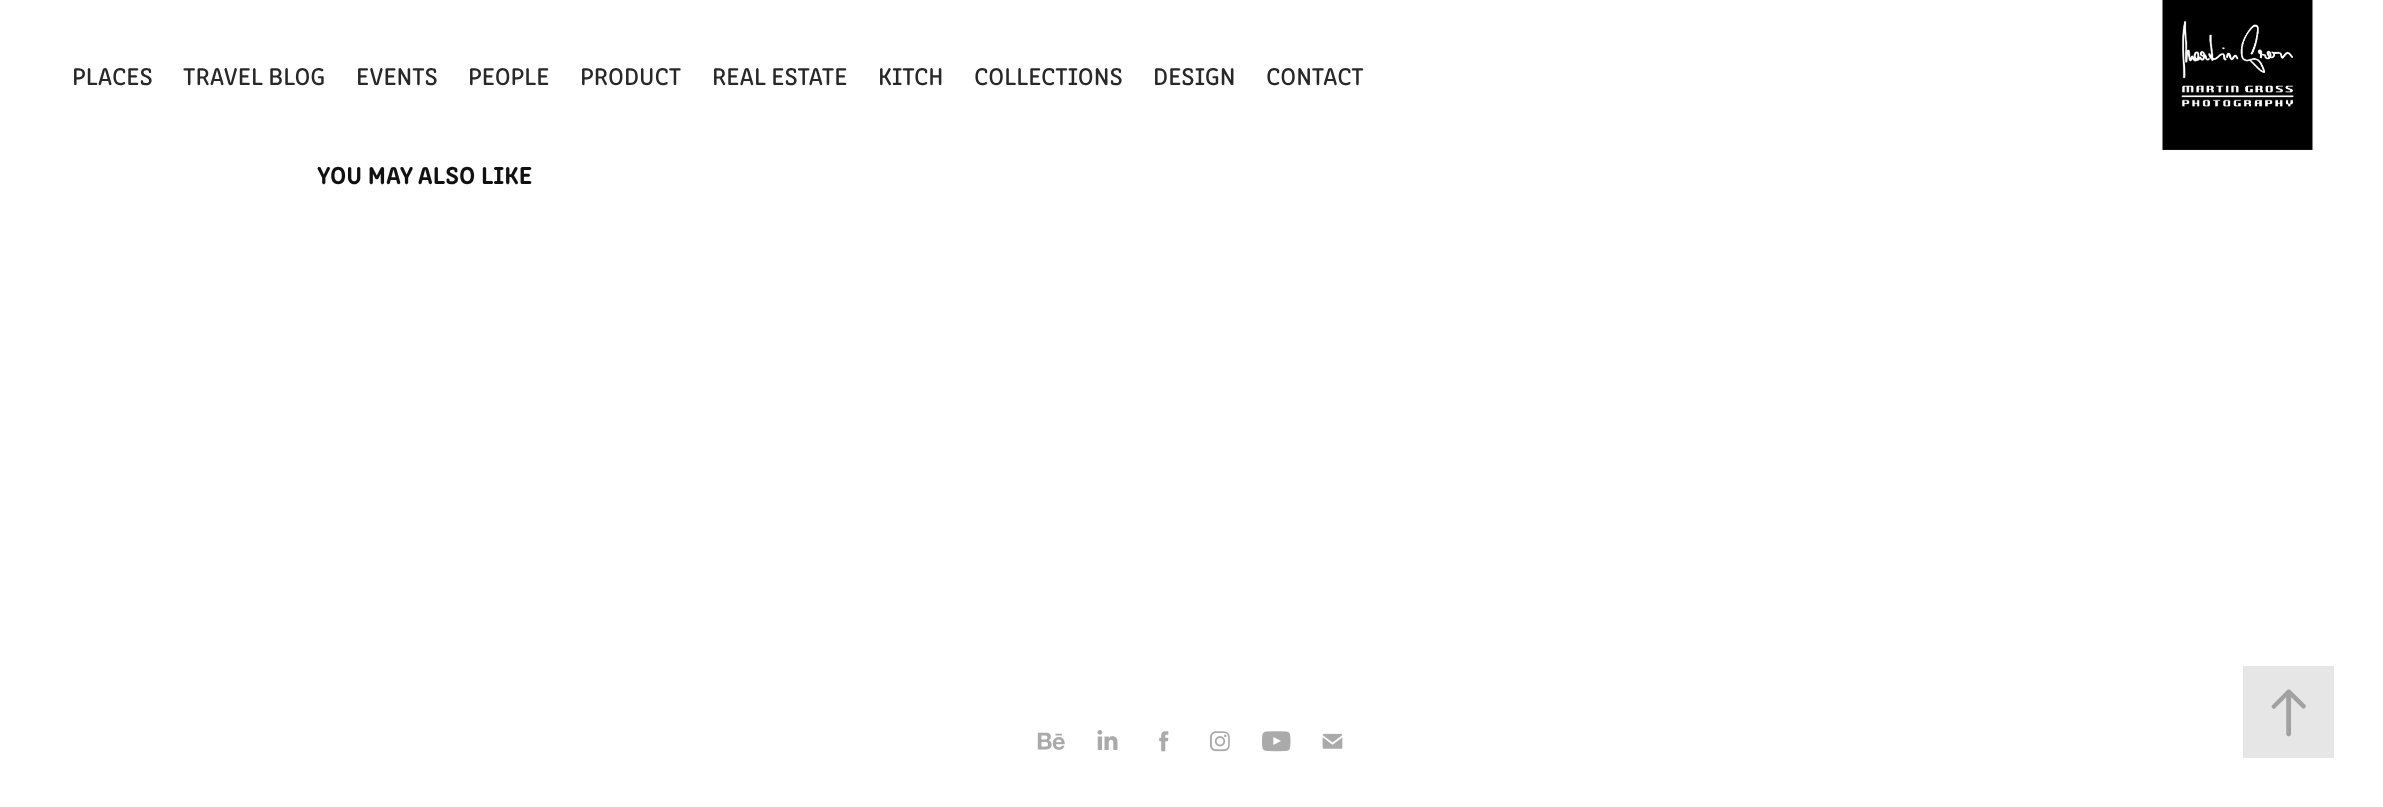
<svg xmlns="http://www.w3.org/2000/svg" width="2383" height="807">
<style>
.a{font:500 25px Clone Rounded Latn;fill:#282828}
.b{font:bold 25px Clone Rounded Latn;fill:#111}
</style>
<rect width="100%" height="100%" fill="#fff"/>
<image href="1.png" x="2162" y="0" width="151" height="150"/>
<path fill="#e6e6e6" d="M2243 666h91v92H2243z"/>
<image href="2.png" x="2271" y="689" width="35" height="48"/>
<image href="3.png" x="1037" y="732" width="28" height="18"/>
<image href="4.png" x="1097" y="730" width="21" height="20"/>
<image href="5.png" x="1159" y="731" width="10" height="21"/>
<image href="6.png" x="1210" y="731" width="20" height="21"/>
<image href="7.png" x="1262" y="731" width="29" height="21"/>
<image href="8.png" x="1322" y="733" width="21" height="16"/>
<text class="a" x="72" y="85">PLACES</text>
<text class="a" x="183" y="85">TRAVEL BLOG</text>
<text class="a" x="356" y="85">EVENTS</text>
<text class="a" x="468" y="85">PEOPLE</text>
<text class="a" x="580" y="85">PRODUCT</text>
<text class="a" x="712" y="85">REAL ESTATE</text>
<text class="a" x="878" y="85">KITCH</text>
<text class="a" x="974" y="85">COLLECTIONS</text>
<text class="a" x="1153" y="85">DESIGN</text>
<text class="a" x="1266" y="85">CONTACT</text>
<text class="b" x="317" y="184">YOU MAY ALSO LIKE</text>
</svg>
